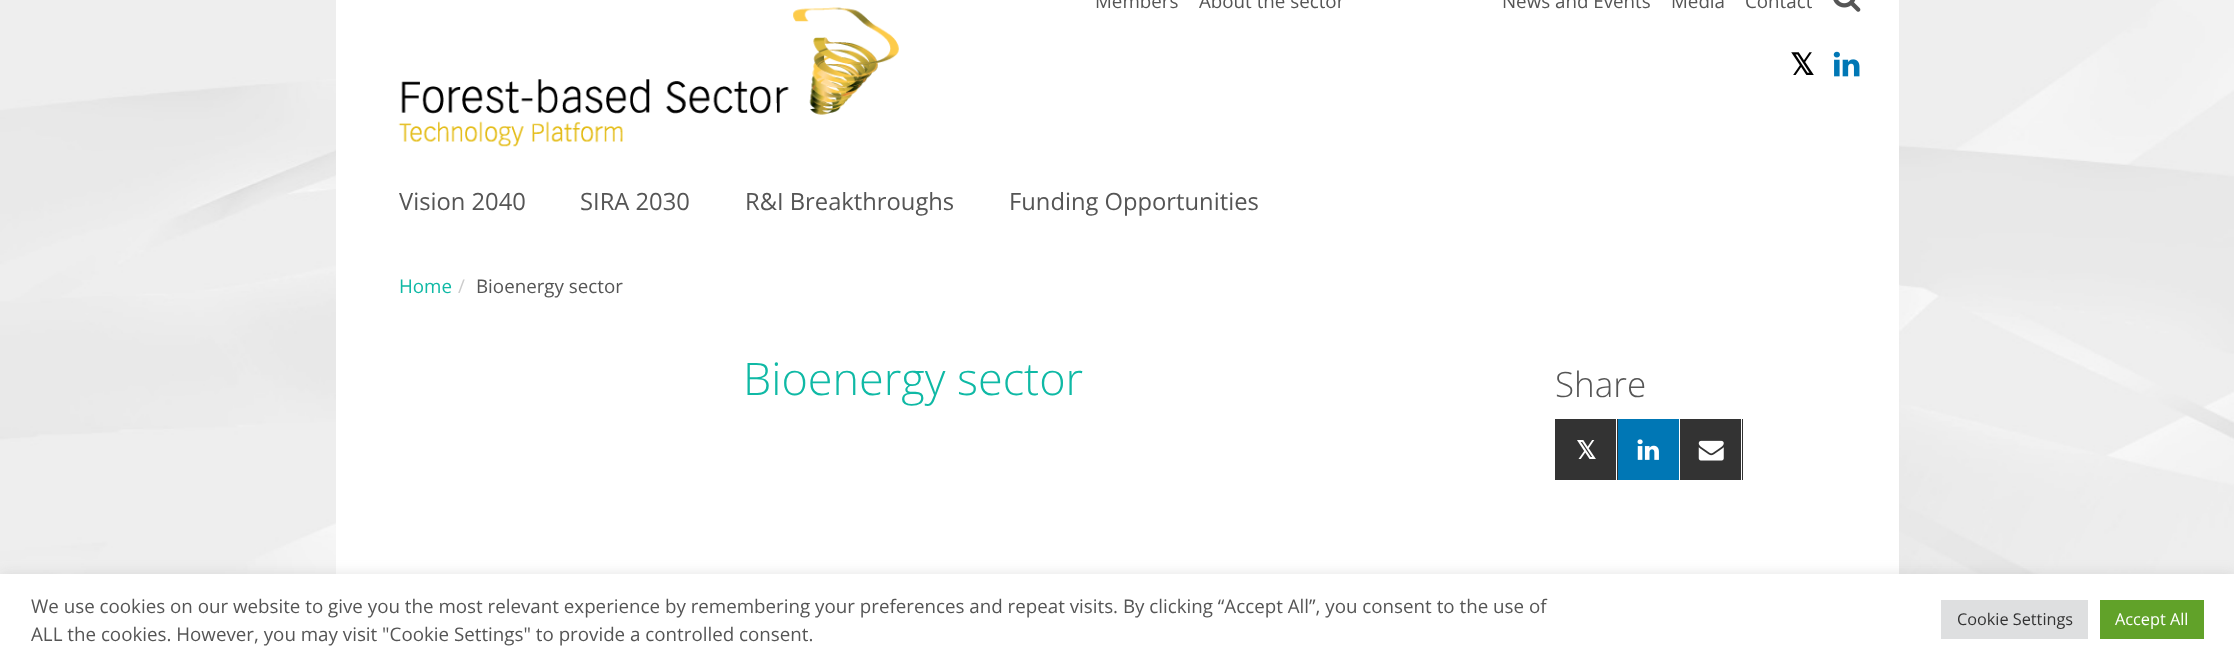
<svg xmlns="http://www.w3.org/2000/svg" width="2234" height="665">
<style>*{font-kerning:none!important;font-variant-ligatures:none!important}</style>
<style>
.a{font:18.75px Open Sans;fill:#555}
.b{font:bold 30px DejaVu Sans;fill:#000}
.c{font:23.75px Open Sans;fill:#555}
.d{font:18.75px Open Sans;fill:#0fb9a5}
.e{font:18.75px Open Sans;fill:#ccc}
.f{font:300 45px Open Sans;fill:#0fb9a5}
.g{font:300 35px Open Sans;fill:#555}
.h{font:bold 25px DejaVu Sans;fill:#fff}
.i{font:16.25px Open Sans;fill:#333}
.j{font:16.25px Open Sans;fill:#fff}
</style>
<rect width="100%" height="100%" fill="#fff"/>
<image href="1.png" x="0" y="0" width="2234" height="574"/>
<path fill="#fff" d="M336 0h1563v574H336z"/>
<image href="2.png" x="398" y="7" width="501" height="140"/>
<image href="3.png" x="1833" y="0" width="28" height="12"/>
<image href="4.png" x="1833" y="51" width="27" height="26"/>
<path fill="#333" d="M1555 419h63v61H1555z"/>
<path fill="#fff" d="M1616 419h1v62H1616z"/>
<path fill="#0077b5" d="M1618 419h61v61H1618z"/>
<image href="5.png" x="1637" y="439" width="22" height="21"/>
<path fill="#333" d="M1680 419h63v61H1680z"/>
<path fill="#fff" d="M1741 419h1v62H1741z"/>
<image href="6.png" x="1698" y="440" width="26" height="21"/>
<path fill="#acabab4d" filter="blur(6px)" d="M0 573h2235v91H0z"/>
<path fill="#fff" d="M0 574h2234v91H0z"/>
<path fill="#dedfe0" d="M1941 600h147v39H1941z"/>
<path fill="#61a229" d="M2100 600h104v39H2100z"/>
<text class="a" x="1095" y="8">Members</text>
<text class="a" x="1199" y="8">About the sector</text>
<text class="a" x="1502" y="8">News and Events</text>
<text class="a" x="1671" y="8">Media</text>
<text class="a" x="1745" y="8">Contact</text>
<text class="b" x="1790" y="75">𝕏</text>
<text class="c" x="399" y="210">Vision 2040</text>
<text class="c" x="580" y="210">SIRA 2030</text>
<text class="c" x="745" y="210">R&amp;I Breakthroughs</text>
<text class="c" x="1009" y="210">Funding Opportunities</text>
<text class="d" x="399" y="293">Home</text>
<text class="e" x="458" y="293">/</text>
<text class="a" x="476" y="293">Bioenergy sector</text>
<text class="f" x="743" y="395">Bioenergy sector</text>
<text class="g" x="1555" y="397">Share</text>
<text class="h" x="1576" y="459">𝕏</text>
<text class="a" x="31" y="613">We use cookies on our website to give you the most relevant experience by remembering your preferences and repeat visits. By clicking “Accept All”, you consent to the use of</text>
<text class="a" x="31" y="641">ALL the cookies. However, you may visit "Cookie Settings" to provide a controlled consent.</text>
<text class="i" x="1957" y="625">Cookie Settings</text>
<text class="j" x="2115" y="625">Accept All</text>
</svg>
